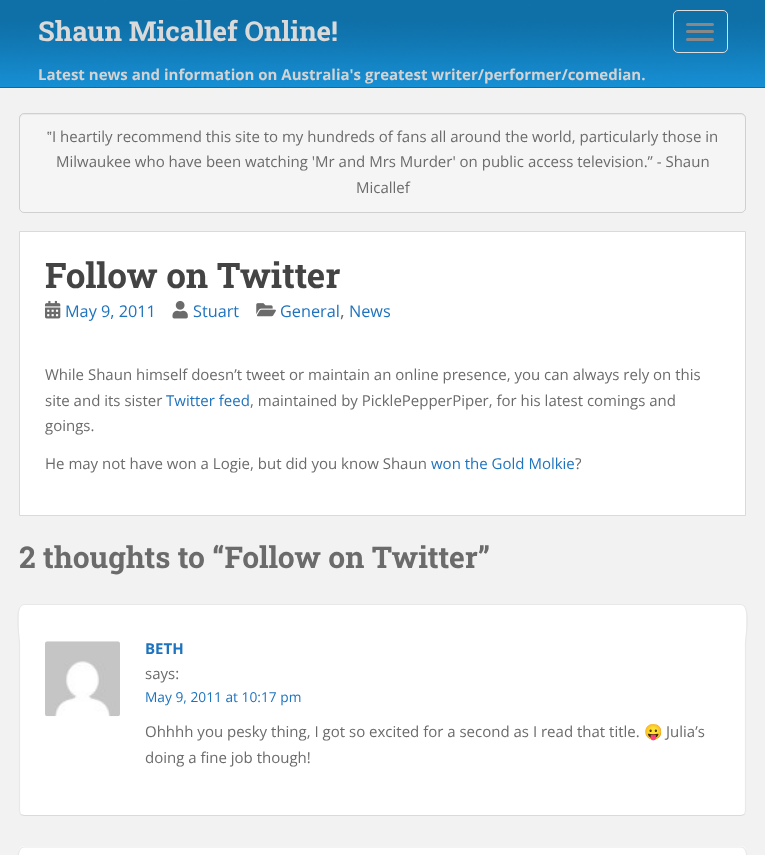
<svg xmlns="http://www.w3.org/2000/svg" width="765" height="855">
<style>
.a{font:bold 27.5px Roboto Slab;fill:#dadada}
.b{font:bold 15px Open Sans;fill:#d3d3d3}
.c{font:15px Liberation Sans;fill:#6b6b6b}
.d{font:15px Open Sans;fill:#6b6b6b}
.e{font:bold 35px Roboto Slab;fill:#444}
.f{font:16.25px Open Sans;fill:#1e73be}
.g{font:18px Open Sans;fill:#6b6b6b}
.h{font:15px Open Sans;fill:#1e73be}
.i{font:bold 30px Roboto Slab;fill:#6b6b6b}
.j{font:bold 15px Open Sans;fill:#1e73be}
.k{font:13.75px Open Sans;fill:#1e73be}
.l{font:15px Noto Color Emoji;fill:#6b6b6b}
</style>
<rect width="100%" height="100%" fill="#f2f2f2"/>
<path fill="#363636" d="M0 87h765v1H0z"/>
<image href="1.png" x="0" y="0" width="765" height="88"/>
<rect fill="none" stroke="#ddd" x="673.5" y="10.5" width="54" height="42" rx="4.5"/>
<rect fill="#888" x="686" y="23" width="28" height="3" rx="1.5"/>
<rect fill="#888" x="686" y="30" width="28" height="3" rx="1.5"/>
<rect fill="#888" x="686" y="38" width="28" height="3" rx="1.5"/>
<rect fill="#f5f5f5" x="19" y="113" width="727" height="100" rx="5"/>
<path fill="#e9e9e9" d="M24 115h717c2 0 4 2 4 4c0-3-1-5-4-5h-717l-3 1l-1 1v3c0-2 2-4 4-4z"/>
<rect fill="none" stroke="#00000026" x="19.5" y="113.5" width="726" height="99" rx="4.5"/>
<path fill="#fff" stroke="#dadada" d="M19.5 231.5h726v284H19.5z"/>
<image href="2.png" x="45" y="300" width="16" height="19"/>
<image href="3.png" x="172" y="300" width="16" height="19"/>
<image href="4.png" x="256" y="303" width="20" height="14"/>
<rect fill="#fff" x="19" y="604" width="727" height="212" rx="5"/>
<path fill="none" stroke="#dadada" stroke-width="1.2" d="M744.5 814.5l-3.5 1h-717l-3.5-1"/>
<path fill="none" stroke="#e8e8e8" stroke-width="1.2" d="M20.5 814.5l-1-3.5v-168.5c0-3.5-6-38 4.5-38h717c10.5 0 4.5 34.5 4.5 38v168.5l-1 3.5"/>
<image href="5.png" x="45" y="641" width="75" height="76"/>
<rect fill="#fff" x="19" y="846" width="727" height="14" rx="5"/>
<path fill="none" stroke="#e8e8e8" stroke-width="1.2" d="M20.5 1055.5l-1-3v-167.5c0-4-6-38 4.5-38h717c10.5 0 4.5 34 4.5 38v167.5l-1 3"/>
<text class="a" x="38" y="41">Shaun Micallef Online!</text>
<text class="b" x="38" y="80">Latest news and information on Australia's greatest writer/performer/comedian.</text>
<text class="c" x="47" y="142">‟</text>
<text class="d" x="52" y="142">I heartily recommend this site to my hundreds of fans all around the world, particularly those in</text>
<text class="d" x="56" y="167">Milwaukee who have been watching 'Mr and Mrs Murder' on public access television.” - Shaun</text>
<text class="d" x="356" y="193">Micallef</text>
<text class="e" x="45" y="288">Follow on Twitter</text>
<text class="f" x="65" y="317">May 9, 2011</text>
<text class="f" x="193" y="317">Stuart</text>
<text class="f" x="280" y="317">General</text>
<text class="g" x="340" y="317">,</text>
<text class="f" x="349" y="317">News</text>
<text class="d" x="45" y="380">While Shaun himself doesn’t tweet or maintain an online presence, you can always rely on this</text>
<text class="d" x="45" y="406">site and its sister</text>
<text class="h" x="166" y="406">Twitter feed</text>
<text class="d" x="250" y="406">, maintained by PicklePepperPiper, for his latest comings and</text>
<text class="d" x="45" y="431">goings.</text>
<text class="d" x="45" y="469">He may not have won a Logie, but did you know Shaun</text>
<text class="h" x="431" y="469">won the Gold Molkie</text>
<text class="d" x="575" y="469">?</text>
<text class="i" x="19" y="568">2 thoughts to “Follow on Twitter”</text>
<text class="j" x="145" y="654">BETH</text>
<text class="d" x="145" y="679">says:</text>
<text class="k" x="145" y="702">May 9, 2011 at 10:17 pm</text>
<text class="d" x="145" y="737">Ohhhh you pesky thing, I got so excited for a second as I read that title.</text>
<text class="l" x="644" y="737">😛</text>
<text class="d" x="666" y="737">Julia’s</text>
<text class="d" x="145" y="763">doing a fine job though!</text>
</svg>
